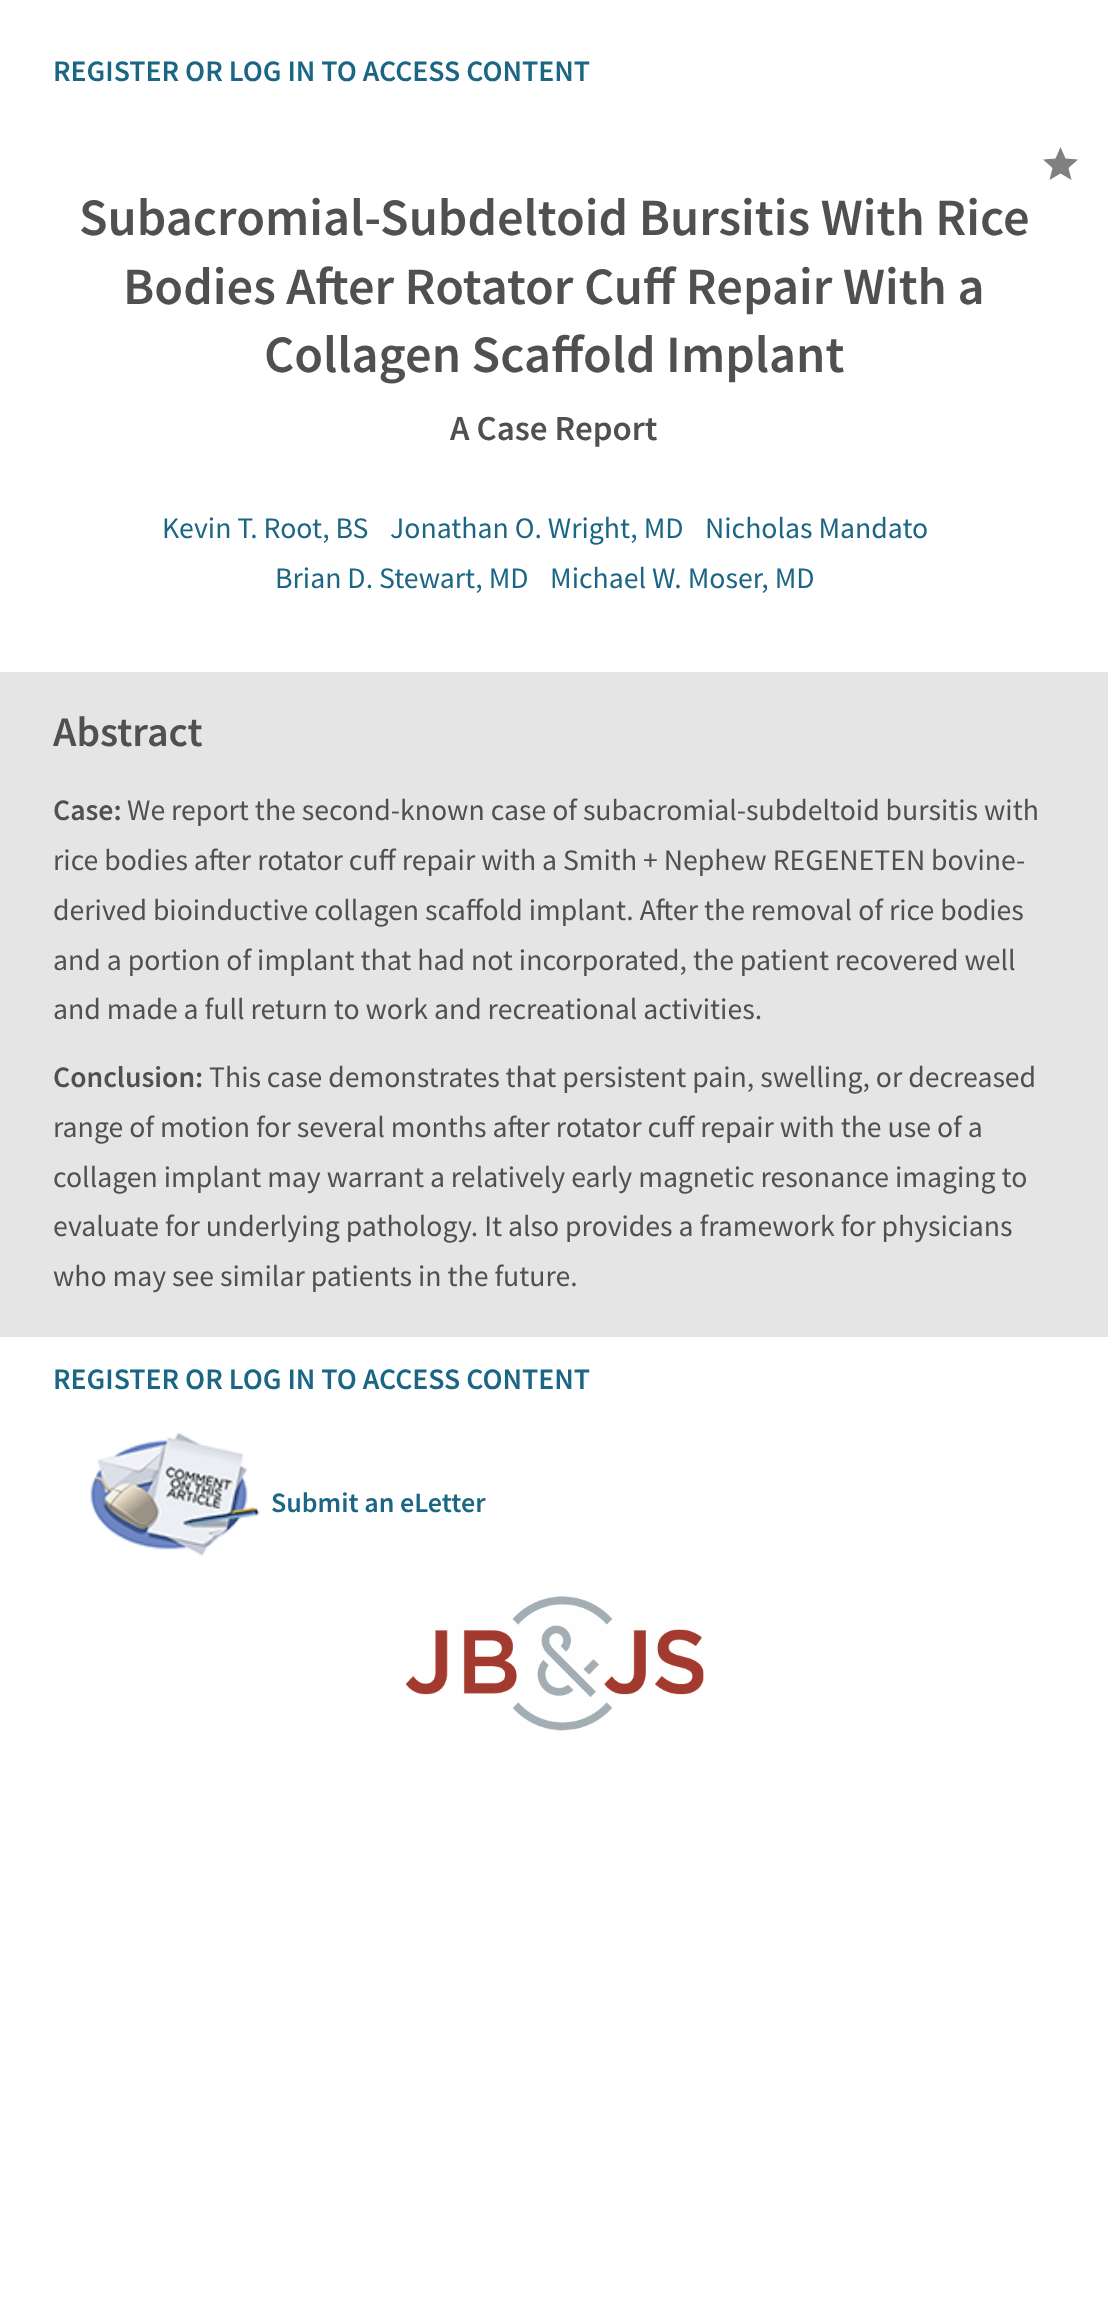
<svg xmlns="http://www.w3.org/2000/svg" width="1108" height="2310">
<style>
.a{font:600 29.75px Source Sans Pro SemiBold;fill:#1b6685}
.b{font:600 52.5px Source Sans Pro SemiBold;fill:#505050}
.c{font:600 35px Source Sans Pro SemiBold;fill:#505050}
.d{font:29.75px Source Sans Pro;fill:#1b6685}
.e{font:600 42px Source Sans Pro SemiBold;fill:#505050}
.f{font:600 29.75px Source Sans Pro SemiBold;fill:#505050}
.g{font:29.75px Source Sans Pro;fill:#505050}
.h{font:600 28px Source Sans Pro SemiBold;fill:#1b6685}
</style>
<rect width="100%" height="100%" fill="#fff"/>
<path fill="#e5e5e5" d="M0 672h1108v665H0z"/>
<image href="1.png" x="90" y="1433" width="170" height="123"/>
<image href="2.png" x="406" y="1596" width="298" height="135"/>
<path fill="#808080" d="M1060.5 173.5l11 6.5l-3-12l9.5-8.5l-12.5-1l-5-11.5l-5 11.5l-12.5 1l9.5 8.5l-3 12z"/>
<text class="a" x="53" y="81">REGISTER OR LOG IN TO ACCESS CONTENT</text>
<text class="b" x="79" y="235">Subacromial-Subdeltoid Bursitis With Rice</text>
<text class="b" x="123" y="304">Bodies After Rotator Cuff Repair With a</text>
<text class="b" x="264" y="372">Collagen Scaffold Implant</text>
<text class="c" x="450" y="440">A Case Report</text>
<text class="d" x="162" y="538">Kevin T. Root, BS</text>
<text class="d" x="390" y="538">Jonathan O. Wright, MD</text>
<text class="d" x="705" y="538">Nicholas Mandato</text>
<text class="d" x="275" y="588">Brian D. Stewart, MD</text>
<text class="d" x="550" y="588">Michael W. Moser, MD</text>
<text class="e" x="53" y="746">Abstract</text>
<text class="f" x="53" y="820">Case:</text>
<text class="g" x="127" y="820">We report the second-known case of subacromial-subdeltoid bursitis with</text>
<text class="g" x="53" y="870">rice bodies after rotator cuff repair with a Smith + Nephew REGENETEN bovine-</text>
<text class="g" x="53" y="920">derived bioinductive collagen scaffold implant. After the removal of rice bodies</text>
<text class="g" x="53" y="970">and a portion of implant that had not incorporated, the patient recovered well</text>
<text class="g" x="53" y="1019">and made a full return to work and recreational activities.</text>
<text class="f" x="53" y="1087">Conclusion:</text>
<text class="g" x="209" y="1087">This case demonstrates that persistent pain, swelling, or decreased</text>
<text class="g" x="53" y="1137">range of motion for several months after rotator cuff repair with the use of a</text>
<text class="g" x="53" y="1187">collagen implant may warrant a relatively early magnetic resonance imaging to</text>
<text class="g" x="53" y="1236">evaluate for underlying pathology. It also provides a framework for physicians</text>
<text class="g" x="53" y="1286">who may see similar patients in the future.</text>
<text class="a" x="53" y="1389">REGISTER OR LOG IN TO ACCESS CONTENT</text>
<text class="h" x="271" y="1512">Submit an eLetter</text>
</svg>
